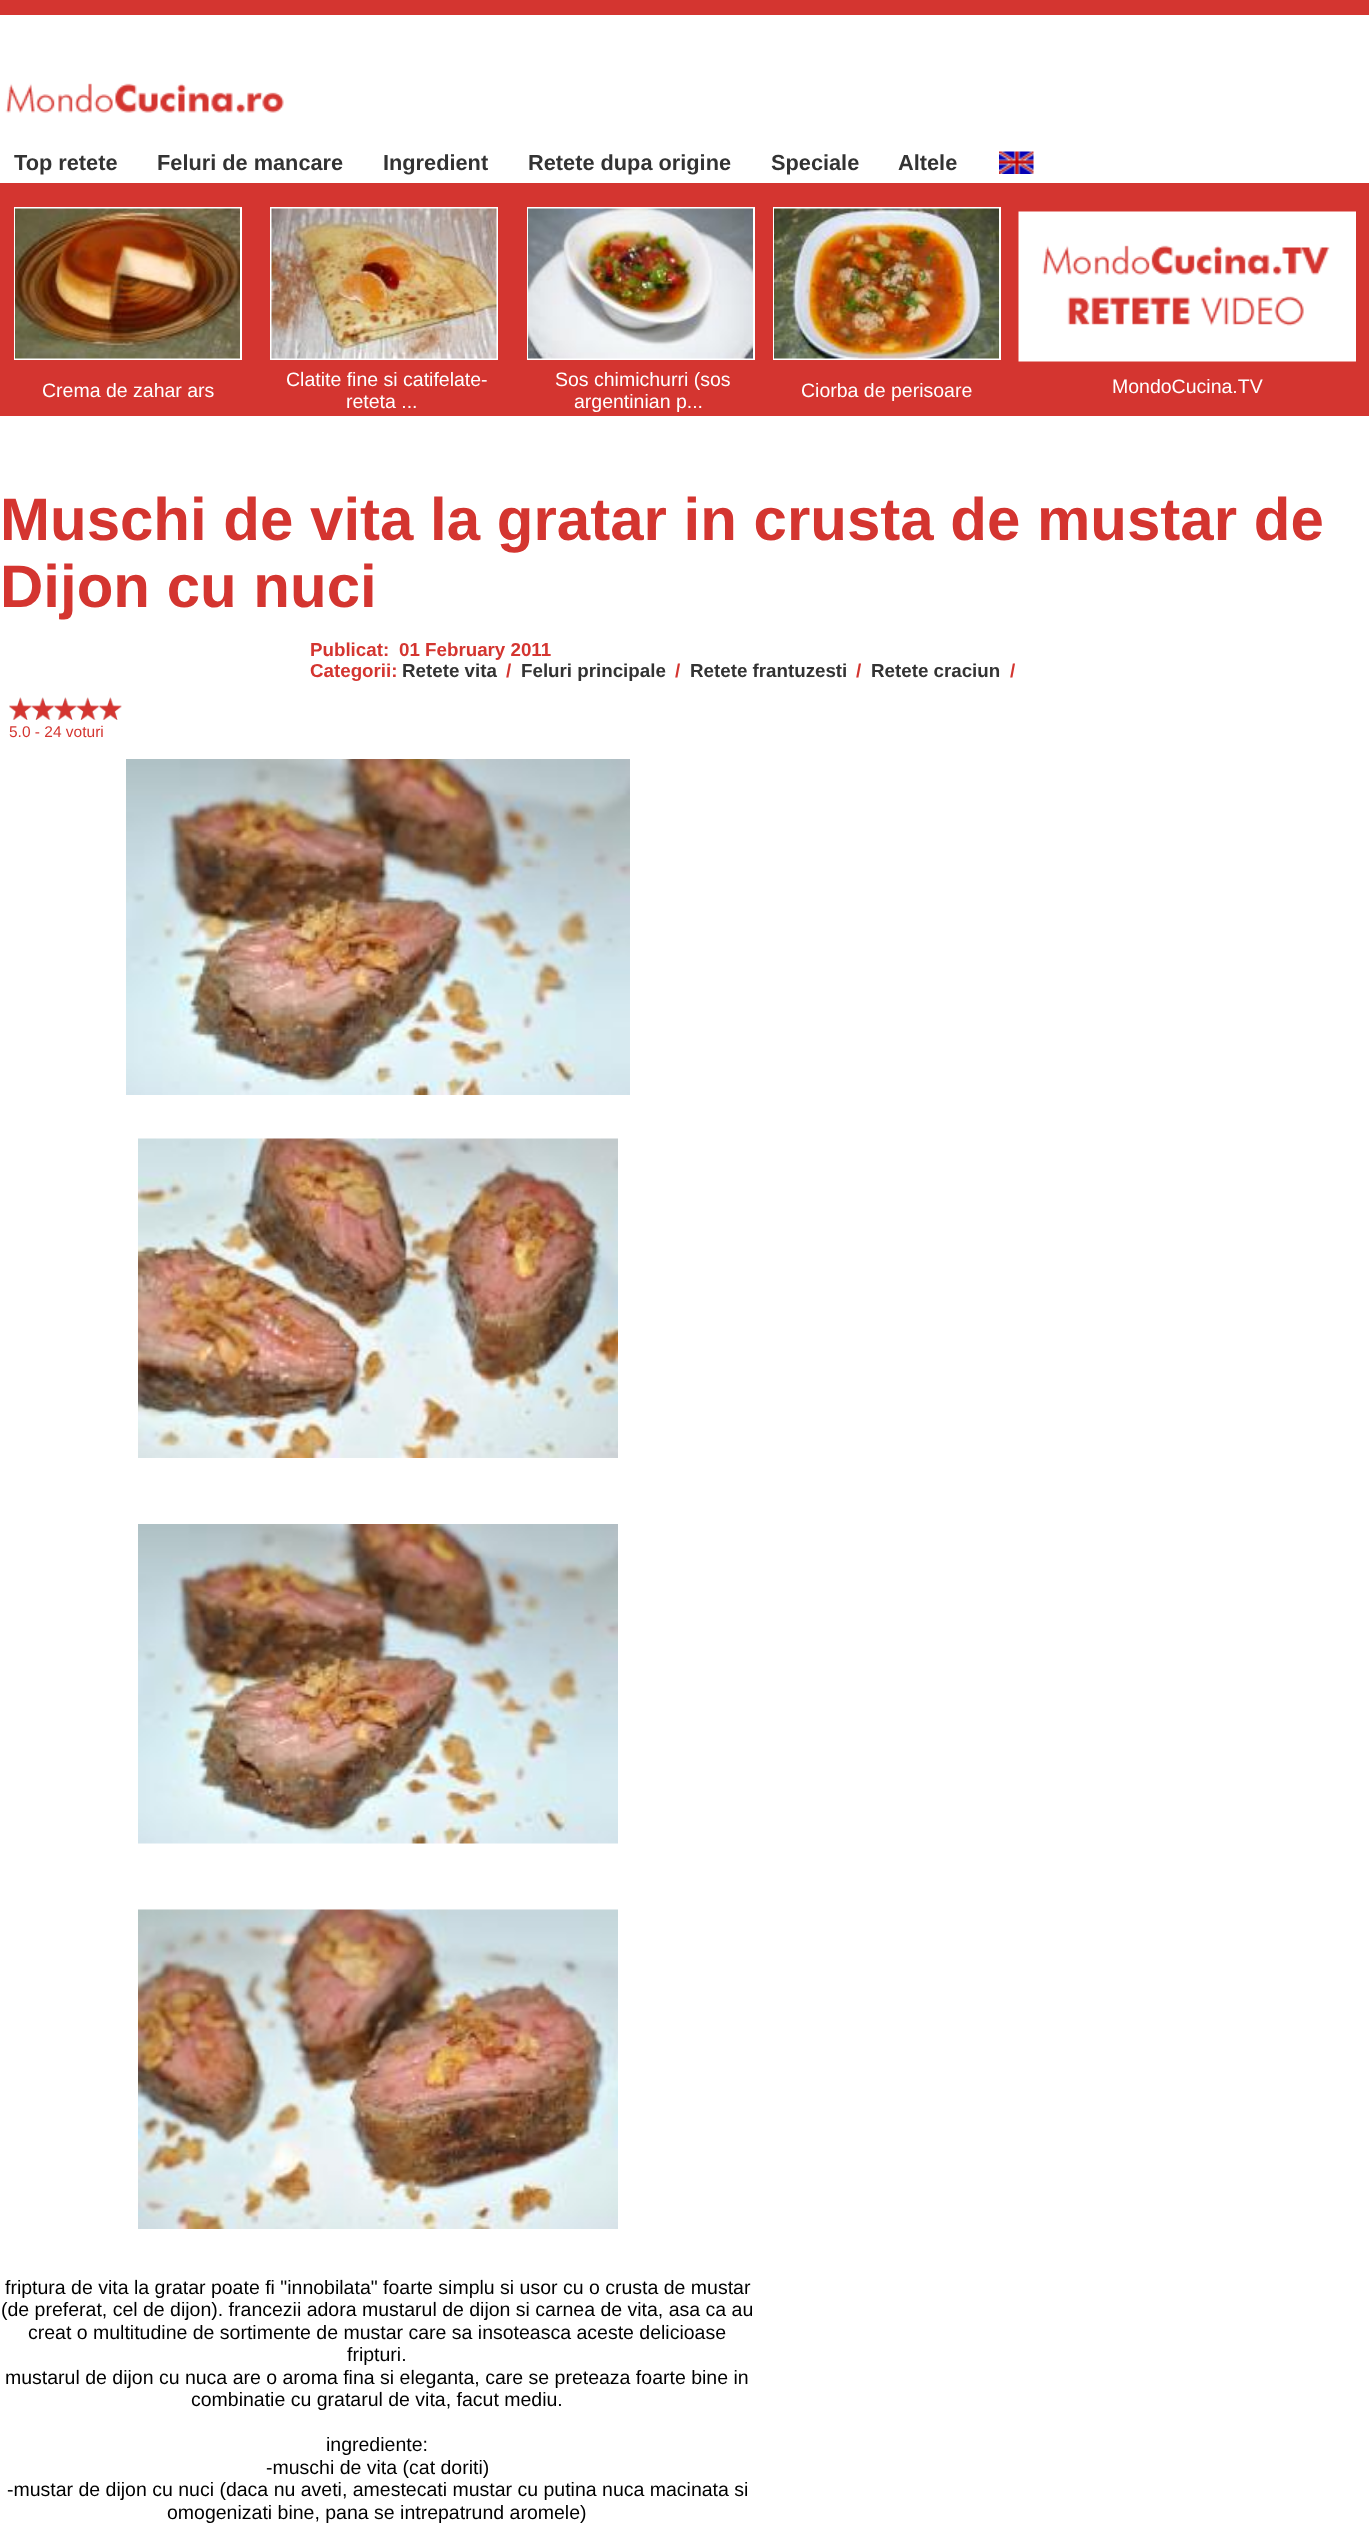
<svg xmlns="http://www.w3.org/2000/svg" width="1369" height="2527">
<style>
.a{font:bold 21.75px Liberation Sans;fill:#333}
.b{font:19.5px Liberation Sans;fill:#fff}
.c{font:bold 60px Liberation Sans;fill:#d43530}
.d{font:bold 18.75px Liberation Sans;fill:#d43530}
.e{font:bold 18.75px Liberation Sans;fill:#333}
.f{font:15.5px Liberation Sans;fill:#d43530}
.g{font:19.5px Liberation Sans;fill:#000}
</style>
<rect width="100%" height="100%" fill="#fff"/>
<path fill="#d43530" d="M0 0h1369v15H0z"/>
<image href="1.png" x="5" y="83" width="279" height="30"/>
<image href="2.png" x="999" y="151" width="35" height="23"/>
<path fill="#d43530" d="M0 183h1369v233H0z"/>
<path fill="none" stroke="#fff" stroke-width="2" d="M15 208h226v151H15z"/>
<image href="3.png" x="15" y="208" width="225" height="151"/>
<path fill="none" stroke="#fff" stroke-width="2" d="M271 208h226v151H271z"/>
<image href="4.png" x="271" y="208" width="226" height="151"/>
<path fill="none" stroke="#fff" stroke-width="2" d="M528 208h226v151H528z"/>
<image href="5.png" x="528" y="208" width="225" height="151"/>
<path fill="none" stroke="#fff" stroke-width="2" d="M774 208h226v151H774z"/>
<image href="6.png" x="774" y="208" width="225" height="151"/>
<image href="7.png" x="1018" y="211" width="338" height="151"/>
<image href="8.png" x="9" y="697" width="23" height="23"/>
<image href="9.png" x="31" y="697" width="23" height="23"/>
<image href="10.png" x="54" y="697" width="23" height="23"/>
<image href="9.png" x="76" y="697" width="23" height="23"/>
<image href="10.png" x="99" y="697" width="23" height="23"/>
<image href="11.png" x="126" y="759" width="504" height="336"/>
<image href="12.png" x="138" y="1138" width="480" height="320"/>
<image href="13.png" x="138" y="1524" width="480" height="320"/>
<image href="14.png" x="138" y="1909" width="480" height="320"/>
<text class="a" x="14" y="170">Top retete</text>
<text class="a" x="157" y="170">Feluri de mancare</text>
<text class="a" x="383" y="170">Ingredient</text>
<text class="a" x="528" y="170">Retete dupa origine</text>
<text class="a" x="771" y="170">Speciale</text>
<text class="a" x="898" y="170">Altele</text>
<text class="b" x="42" y="397">Crema de zahar ars</text>
<text class="b" x="286" y="386">Clatite fine si catifelate-</text>
<text class="b" x="346" y="408">reteta ...</text>
<text class="b" x="555" y="386">Sos chimichurri (sos</text>
<text class="b" x="574" y="408">argentinian p...</text>
<text class="b" x="801" y="397">Ciorba de perisoare</text>
<text class="b" x="1112" y="393">MondoCucina.TV</text>
<text class="c" x="0" y="540">Muschi de vita la gratar in crusta de mustar de</text>
<text class="c" x="0" y="607">Dijon cu nuci</text>
<text class="d" x="310" y="656">Publicat:</text>
<text class="d" x="399" y="656">01 February 2011</text>
<text class="d" x="310" y="677">Categorii:</text>
<text class="e" x="402" y="677">Retete vita</text>
<text class="d" x="506" y="677">/</text>
<text class="e" x="521" y="677">Feluri principale</text>
<text class="d" x="675" y="677">/</text>
<text class="e" x="690" y="677">Retete frantuzesti</text>
<text class="d" x="856" y="677">/</text>
<text class="e" x="871" y="677">Retete craciun</text>
<text class="d" x="1010" y="677">/</text>
<text class="f" x="9" y="737">5.0 - 24 voturi</text>
<text class="g" x="5" y="2294">friptura de vita la gratar poate fi "innobilata" foarte simplu si usor cu o crusta de mustar</text>
<text class="g" x="1" y="2316">(de preferat, cel de dijon). francezii adora mustarul de dijon si carnea de vita, asa ca au</text>
<text class="g" x="28" y="2339">creat o multitudine de sortimente de mustar care sa insoteasca aceste delicioase</text>
<text class="g" x="347" y="2361">fripturi.</text>
<text class="g" x="5" y="2384">mustarul de dijon cu nuca are o aroma fina si eleganta, care se preteaza foarte bine in</text>
<text class="g" x="191" y="2406">combinatie cu gratarul de vita, facut mediu.</text>
<text class="g" x="326" y="2451">ingrediente:</text>
<text class="g" x="266" y="2474">-muschi de vita (cat doriti)</text>
<text class="g" x="7" y="2496">-mustar de dijon cu nuci (daca nu aveti, amestecati mustar cu putina nuca macinata si</text>
<text class="g" x="167" y="2519">omogenizati bine, pana se intrepatrund aromele)</text>
</svg>
